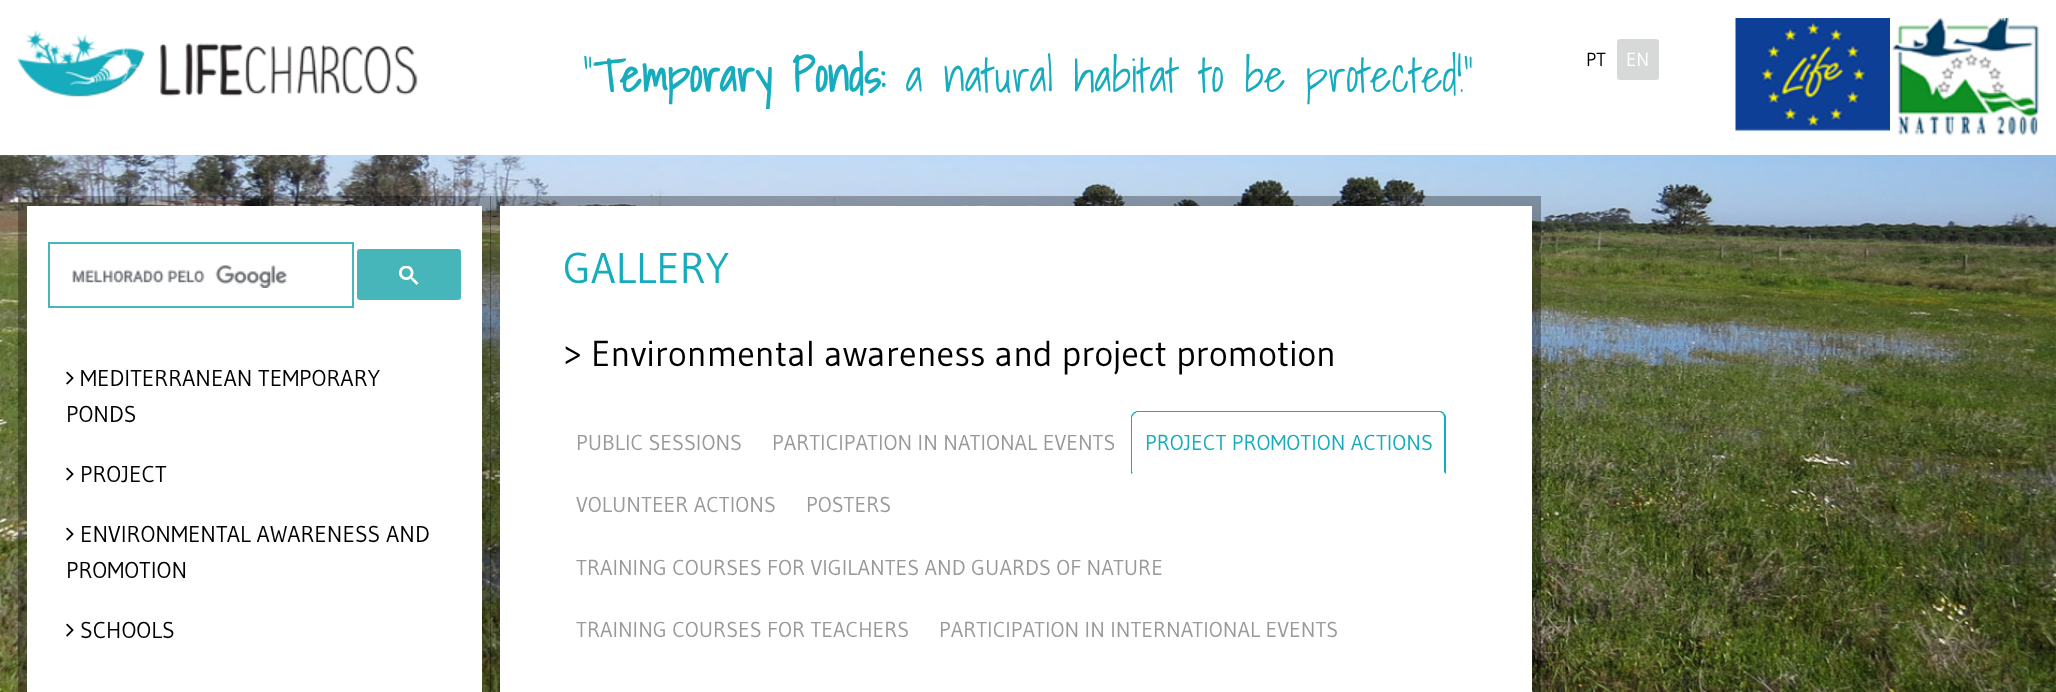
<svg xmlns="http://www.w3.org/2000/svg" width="2056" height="692">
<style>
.a{font:300 45.6px Shadows Into Light;fill:#16acbd}
.b{font:bold 45.6px Shadows Into Light;fill:#16acbd}
.c{font:19px Gudea;fill:#000}
.d{font:19px Gudea;fill:#fff}
.e{font:23px Gudea;fill:#000}
.f{font:43px Gudea;fill:#16acbd}
.g{font:36px Gudea;fill:#000}
.h{font:21.6px Gudea;fill:#999}
.i{font:21.6px Gudea;fill:#16acbd}
</style>
<rect width="100%" height="100%" fill="#fff"/>
<image href="1.png" x="18" y="30" width="400" height="67"/>
<rect fill="#d7d9d9" x="1617" y="39" width="42" height="41" rx="3"/>
<image href="2.png" x="1735" y="18" width="155" height="113"/>
<image href="3.png" x="1891" y="18" width="148" height="118"/>
<image href="5.png" x="2055" y="155" width="1" height="537"/>
<image href="4.png" x="0" y="155" width="2056" height="537"/>
<path fill="#0000004d" d="M18 196h473v496H18z"/>
<path fill="#fff" d="M27 206h455v486H27z"/>
<path fill="none" stroke="#47b6ba" stroke-width="2" d="M49 243h304v64H49z"/>
<image href="6.png" x="72" y="265" width="215" height="23"/>
<rect fill="#47b6ba" stroke="#47b6ba" stroke-width="2" x="358" y="250" width="102" height="49" rx="2"/>
<image href="7.png" x="399" y="266" width="20" height="19"/>
<image href="8.png" x="66" y="371" width="8" height="14"/>
<image href="8.png" x="66" y="467" width="8" height="14"/>
<image href="8.png" x="66" y="527" width="8" height="14"/>
<image href="8.png" x="66" y="623" width="8" height="14"/>
<path fill="#0000004d" d="M490 196h1051v496H490z"/>
<path fill="#fff" d="M500 206h1032v486H500z"/>
<path fill="#16acbd" d="M1137 411c-1 0-3 1-4 2l1 1l3-2h303l3 2l1-1c-1-1-2-2-4-2z"/>
<path fill="#16acbd" d="M1446 474v-57c0-1-1-3-2-4l-1 1l1 3v55z"/>
<path fill="#16acbd" d="M1131 474l2-2h-1v-55l2-3l-1-1c-1 1-2 3-2 4z"/>
<text class="a" x="583" y="92">"</text>
<text class="b" x="593" y="92">Temporary Ponds:</text>
<text class="a" x="906" y="92">a natural habitat to be protected!"</text>
<text class="c" x="1586" y="66">PT</text>
<text class="d" x="1626" y="66">EN</text>
<text class="e" x="80" y="386">MEDITERRANEAN TEMPORARY</text>
<text class="e" x="66" y="422">PONDS</text>
<text class="e" x="80" y="482">PROJECT</text>
<text class="e" x="80" y="542">ENVIRONMENTAL AWARENESS AND</text>
<text class="e" x="66" y="578">PROMOTION</text>
<text class="e" x="80" y="638">SCHOOLS</text>
<text class="f" x="563" y="283">GALLERY</text>
<text class="g" x="563" y="366">&gt; Environmental awareness and project promotion</text>
<text class="h" x="576" y="450">PUBLIC SESSIONS</text>
<text class="h" x="772" y="450">PARTICIPATION IN NATIONAL EVENTS</text>
<text class="i" x="1145" y="450">PROJECT PROMOTION ACTIONS</text>
<text class="h" x="576" y="512">VOLUNTEER ACTIONS</text>
<text class="h" x="806" y="512">POSTERS</text>
<text class="h" x="576" y="575">TRAINING COURSES FOR VIGILANTES AND GUARDS OF NATURE</text>
<text class="h" x="576" y="637">TRAINING COURSES FOR TEACHERS</text>
<text class="h" x="939" y="637">PARTICIPATION IN INTERNATIONAL EVENTS</text>
</svg>
